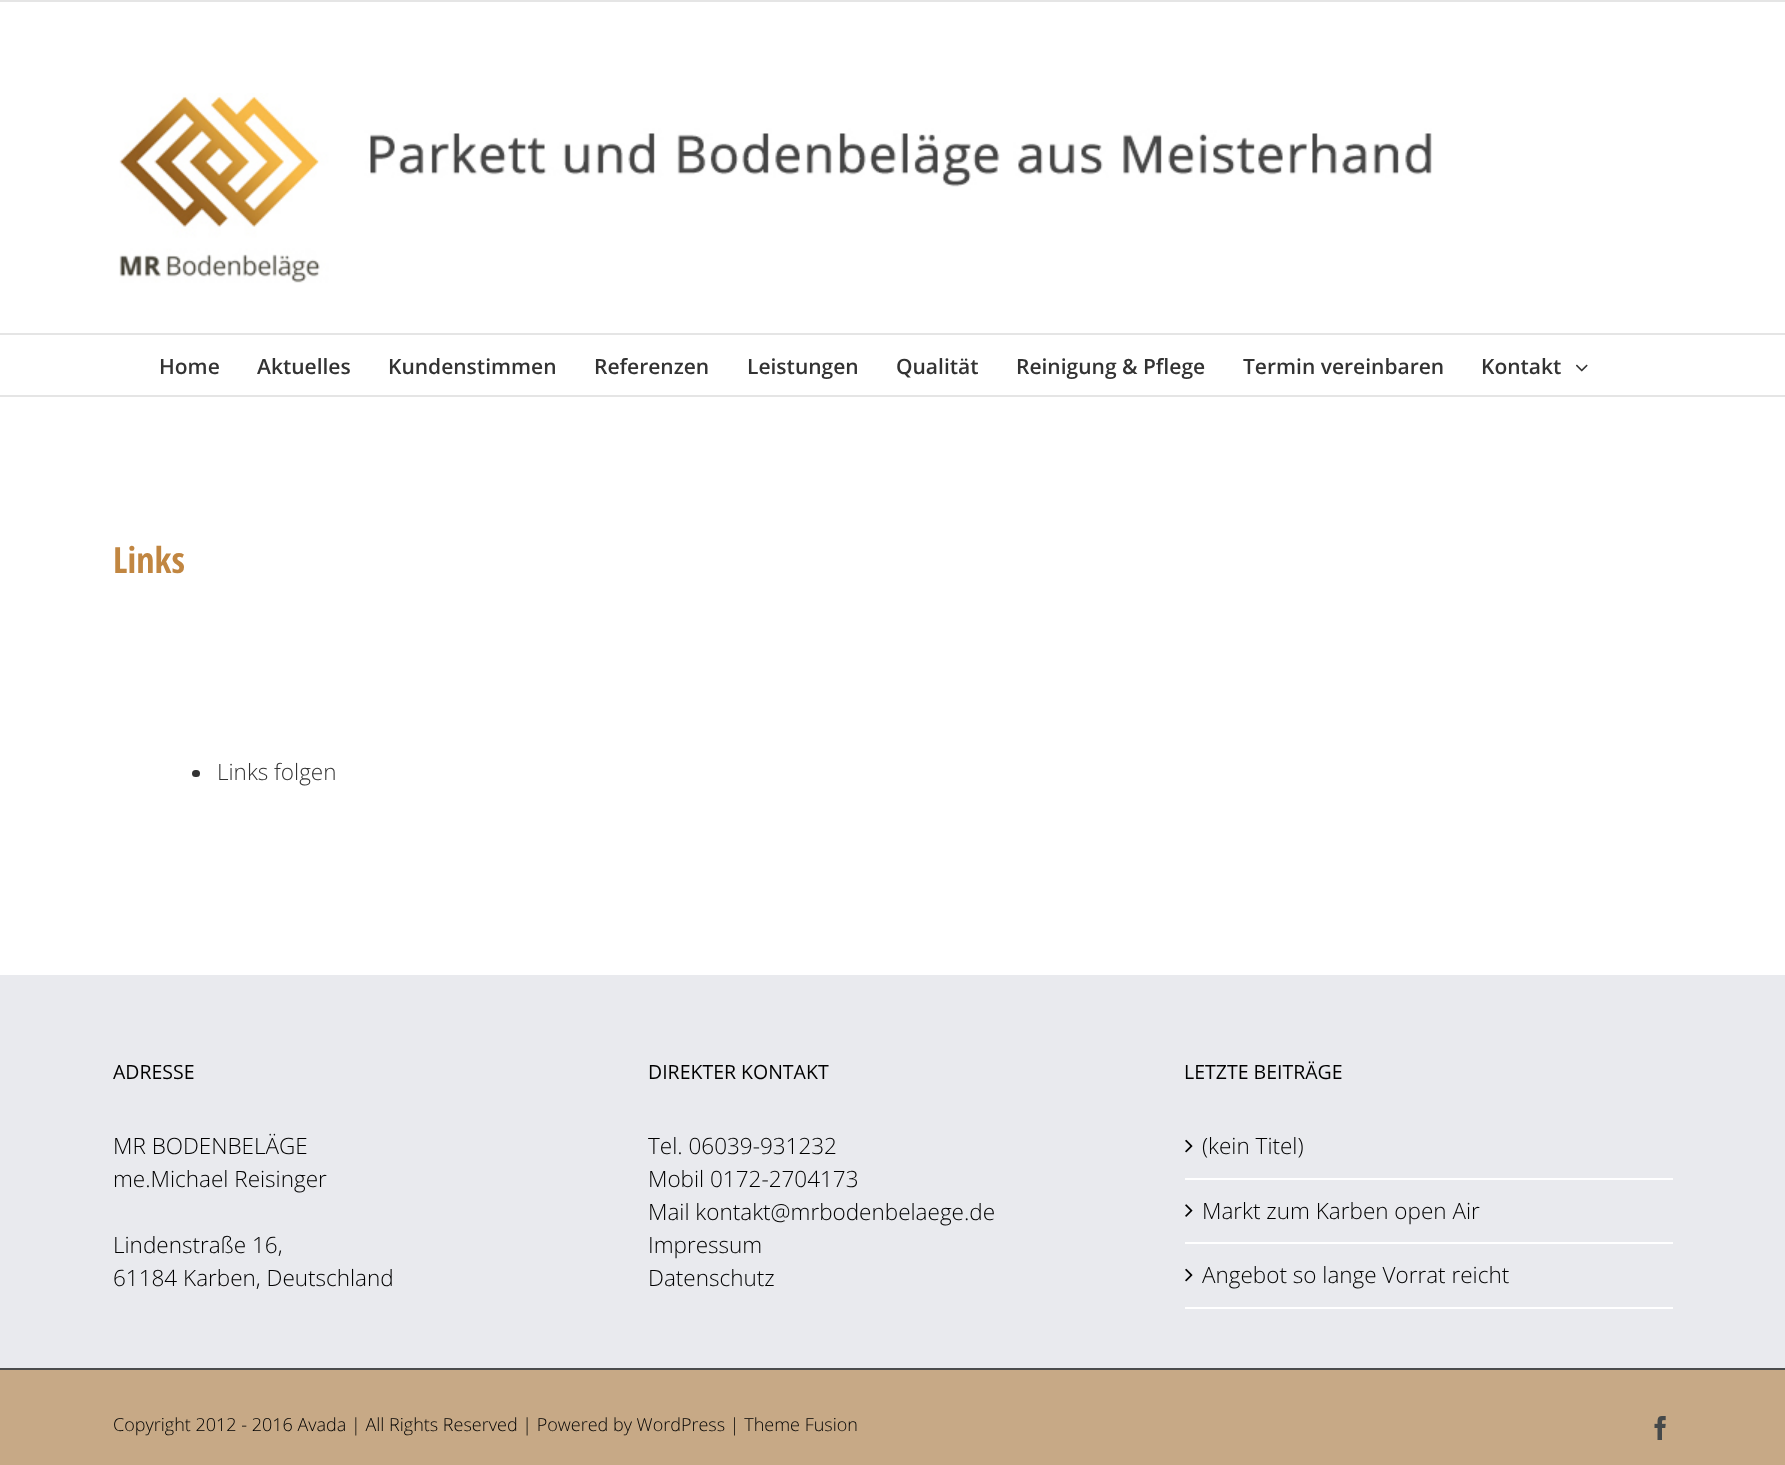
<svg xmlns="http://www.w3.org/2000/svg" width="1785" height="1465">
<style>
.a{font:600 21px Open Sans;fill:#333}
.b{font:bold 36px Open Sans Condensed;fill:#c18641}
.c{font:300 22.5px Open Sans;fill:#333}
.d{font:19.5px Open Sans;fill:#000}
.e{font:300 22.5px Open Sans;fill:#000}
.f{font:300 18px Open Sans;fill:#000}
</style>
<rect width="100%" height="100%" fill="#fff"/>
<path fill="#e5e5e5" d="M0 0h1785v2H0z"/>
<path fill="#e5e5e5" d="M0 333h1785v2H0z"/>
<image href="1.png" x="119" y="93" width="1313" height="190"/>
<path fill="#e5e5e5" d="M0 395h1785v2H0z"/>
<image href="2.png" x="1576" y="364" width="12" height="8"/>
<rect fill="#333" x="192" y="770" width="8" height="7" rx="3.5"/>
<path fill="#e9eaee" d="M0 975h1785v393H0z"/>
<path fill="#fff" d="M1185 1178h488v2H1185z"/>
<image href="3.png" x="1185" y="1139" width="8" height="14"/>
<path fill="#fff" d="M1185 1242h488v2H1185z"/>
<image href="4.png" x="1185" y="1204" width="8" height="13"/>
<path fill="#fff" d="M1185 1307h488v2H1185z"/>
<image href="3.png" x="1185" y="1268" width="8" height="14"/>
<path fill="#c7a986" d="M0 1370h1785v95H0z"/>
<path fill="#4b4c4d" d="M0 1368h1785v2H0z"/>
<image href="5.png" x="1654" y="1416" width="12" height="24"/>
<text class="a" x="159" y="374">Home</text>
<text class="a" x="257" y="374">Aktuelles</text>
<text class="a" x="388" y="374">Kundenstimmen</text>
<text class="a" x="594" y="374">Referenzen</text>
<text class="a" x="747" y="374">Leistungen</text>
<text class="a" x="896" y="374">Qualität</text>
<text class="a" x="1016" y="374">Reinigung &amp; Pflege</text>
<text class="a" x="1243" y="374">Termin vereinbaren</text>
<text class="a" x="1481" y="374">Kontakt</text>
<text class="b" x="113" y="573">Links</text>
<text class="c" x="217" y="780">Links folgen</text>
<text class="d" x="113" y="1079">ADRESSE</text>
<text class="e" x="113" y="1154">MR BODENBELÄGE</text>
<text class="e" x="113" y="1187">me.Michael Reisinger</text>
<text class="e" x="113" y="1253">Lindenstraße 16,</text>
<text class="e" x="113" y="1286">61184 Karben, Deutschland</text>
<text class="d" x="648" y="1079">DIREKTER KONTAKT</text>
<text class="e" x="648" y="1154">Tel. 06039-931232</text>
<text class="e" x="648" y="1187">Mobil 0172-2704173</text>
<text class="e" x="648" y="1220">Mail kontakt@mrbodenbelaege.de</text>
<text class="e" x="648" y="1253">Impressum</text>
<text class="e" x="648" y="1286">Datenschutz</text>
<text class="d" x="1184" y="1079">LETZTE BEITRÄGE</text>
<text class="e" x="1202" y="1154">(kein Titel)</text>
<text class="e" x="1202" y="1219">Markt zum Karben open Air</text>
<text class="e" x="1202" y="1283">Angebot so lange Vorrat reicht</text>
<text class="f" x="113" y="1431">Copyright 2012 - 2016 Avada | All Rights Reserved | Powered by WordPress | Theme Fusion</text>
</svg>
